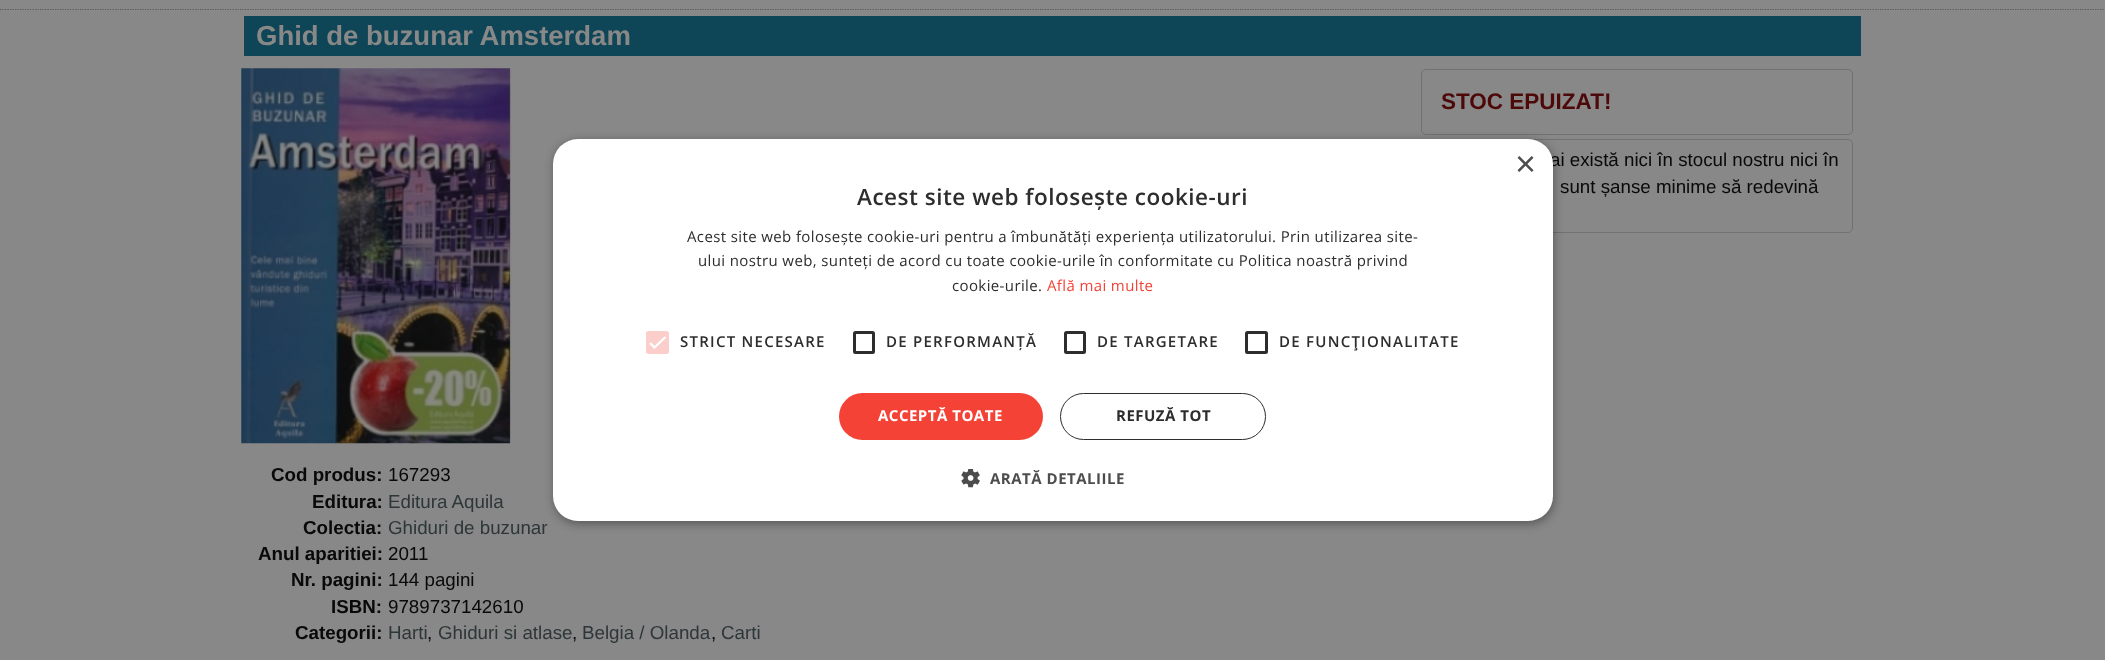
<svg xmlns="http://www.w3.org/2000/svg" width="2105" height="660">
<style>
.a{font:bold 27.5px Liberation Sans;fill:#888}
.b{font:bold 22.5px Liberation Sans;fill:#4d0909}
.c{font:18.75px Liberation Sans;fill:#090909}
.d{font:bold 18.75px Liberation Sans;fill:#090909}
.e{font:18.75px Liberation Sans;fill:#2d3638}
.f{font:36px Liberation Sans;fill:#4d4d4d}
.g{font:600 22.5px Open Sans;letter-spacing:0.5px;fill:#2d2d2d}
.h{font:15px Open Sans;letter-spacing:0.38px;fill:#2d2d2d}
.i{font:15px Open Sans;letter-spacing:0.38px;fill:#f44336}
.j{font:600 15px Open Sans;letter-spacing:1.25px;fill:#2d2d2d}
.k{font:bold 15px Open Sans;letter-spacing:0.5px;fill:#fff}
.l{font:bold 15px Open Sans;letter-spacing:0.5px;fill:#2d2d2d}
.m{font:bold 15px Open Sans;letter-spacing:0.5px;fill:#4d4d4d}
</style>
<rect width="100%" height="100%" fill="#888"/>
<path fill="none" stroke="#595959" stroke-width="1.2" stroke-dasharray="1.25 1.25" d="M0 9.5h2105"/>
<path fill="#888" d="M240 8h1624v1H240z"/>
<path fill="#0e4557" d="M244 16h1617v40H244z"/>
<image href="1.png" x="241" y="68" width="272" height="376"/>
<rect fill="none" stroke="#717171" x="1421.5" y="69.5" width="431" height="65" rx="4.5"/>
<rect fill="none" stroke="#717171" x="1421.5" y="139.5" width="431" height="93" rx="4.5"/>
<rect fill="#00000059" filter="blur(5px)" x="554" y="141" width="1000" height="383" rx="25"/>
<text class="a" x="256" y="45">Ghid de buzunar Amsterdam</text>
<text class="b" x="1441" y="109">STOC EPUIZAT!</text>
<text class="c" x="1550" y="166">ai există nici în stocul nostru nici în</text>
<text class="c" x="1560" y="193">sunt șanse minime să redevină</text>
<text class="d" x="271" y="481">Cod produs:</text>
<text class="c" x="388" y="481">167293</text>
<text class="d" x="312" y="508">Editura:</text>
<text class="e" x="388" y="508">Editura Aquila</text>
<text class="d" x="303" y="534">Colectia:</text>
<text class="e" x="388" y="534">Ghiduri de buzunar</text>
<text class="d" x="258" y="560">Anul aparitiei:</text>
<text class="c" x="388" y="560">2011</text>
<text class="d" x="291" y="586">Nr. pagini:</text>
<text class="c" x="388" y="586">144 pagini</text>
<text class="d" x="331" y="613">ISBN:</text>
<text class="c" x="388" y="613">9789737142610</text>
<text class="d" x="295" y="639">Categorii:</text>
<text class="e" x="388" y="639">Harti</text>
<text class="c" x="427" y="639">,</text>
<text class="e" x="438" y="639">Ghiduri si atlase</text>
<text class="c" x="572" y="639">,</text>
<text class="e" x="582" y="639">Belgia / Olanda</text>
<text class="c" x="711" y="639">,</text>
<text class="e" x="721" y="639">Carti</text>
<rect fill="#fff" x="553" y="139" width="1000" height="382" rx="25"/>
<text class="f" x="1515" y="176">×</text>
<text class="g" x="857" y="205">Acest site web folosește cookie-uri</text>
<text class="h" x="687" y="242">Acest site web folosește cookie-uri pentru a îmbunătăți experiența utilizatorului. Prin utilizarea site-</text>
<text class="h" x="698" y="266">ului nostru web, sunteți de acord cu toate cookie-urile în conformitate cu Politica noastră privind</text>
<text class="h" x="952" y="291">cookie-urile.</text>
<text class="i" x="1047" y="291">Află mai multe</text>
<rect fill="#fccecb" x="646" y="331" width="23" height="23" rx="2.5"/>
<path fill="none" stroke="#fff" stroke-width="2.3" d="M650 343l4.5 4.5l11-10.5"/>
<text class="j" x="680" y="347">STRICT NECESARE</text>
<rect fill="none" stroke="#2d2d2d" stroke-width="3" x="854.5" y="332.5" width="19" height="20" rx="1"/>
<text class="j" x="886" y="347">DE PERFORMANȚĂ</text>
<rect fill="none" stroke="#2d2d2d" stroke-width="3" x="1065.5" y="332.5" width="19" height="20" rx="1"/>
<text class="j" x="1097" y="347">DE TARGETARE</text>
<rect fill="none" stroke="#2d2d2d" stroke-width="3" x="1246.5" y="332.5" width="20" height="20" rx="1"/>
<text class="j" x="1279" y="347">DE FUNCŢIONALITATE</text>
<rect fill="#f44336" x="839" y="393" width="204" height="47" rx="23.5"/>
<text class="k" x="878" y="421">ACCEPTĂ TOATE</text>
<rect fill="none" stroke="#2d2d2d" x="1060.5" y="393.5" width="205" height="46" rx="23"/>
<text class="l" x="1116" y="421">REFUZĂ TOT</text>
<image href="2.png" x="961" y="469" width="19" height="19"/>
<text class="m" x="990" y="484">ARATĂ DETALIILE</text>
</svg>
